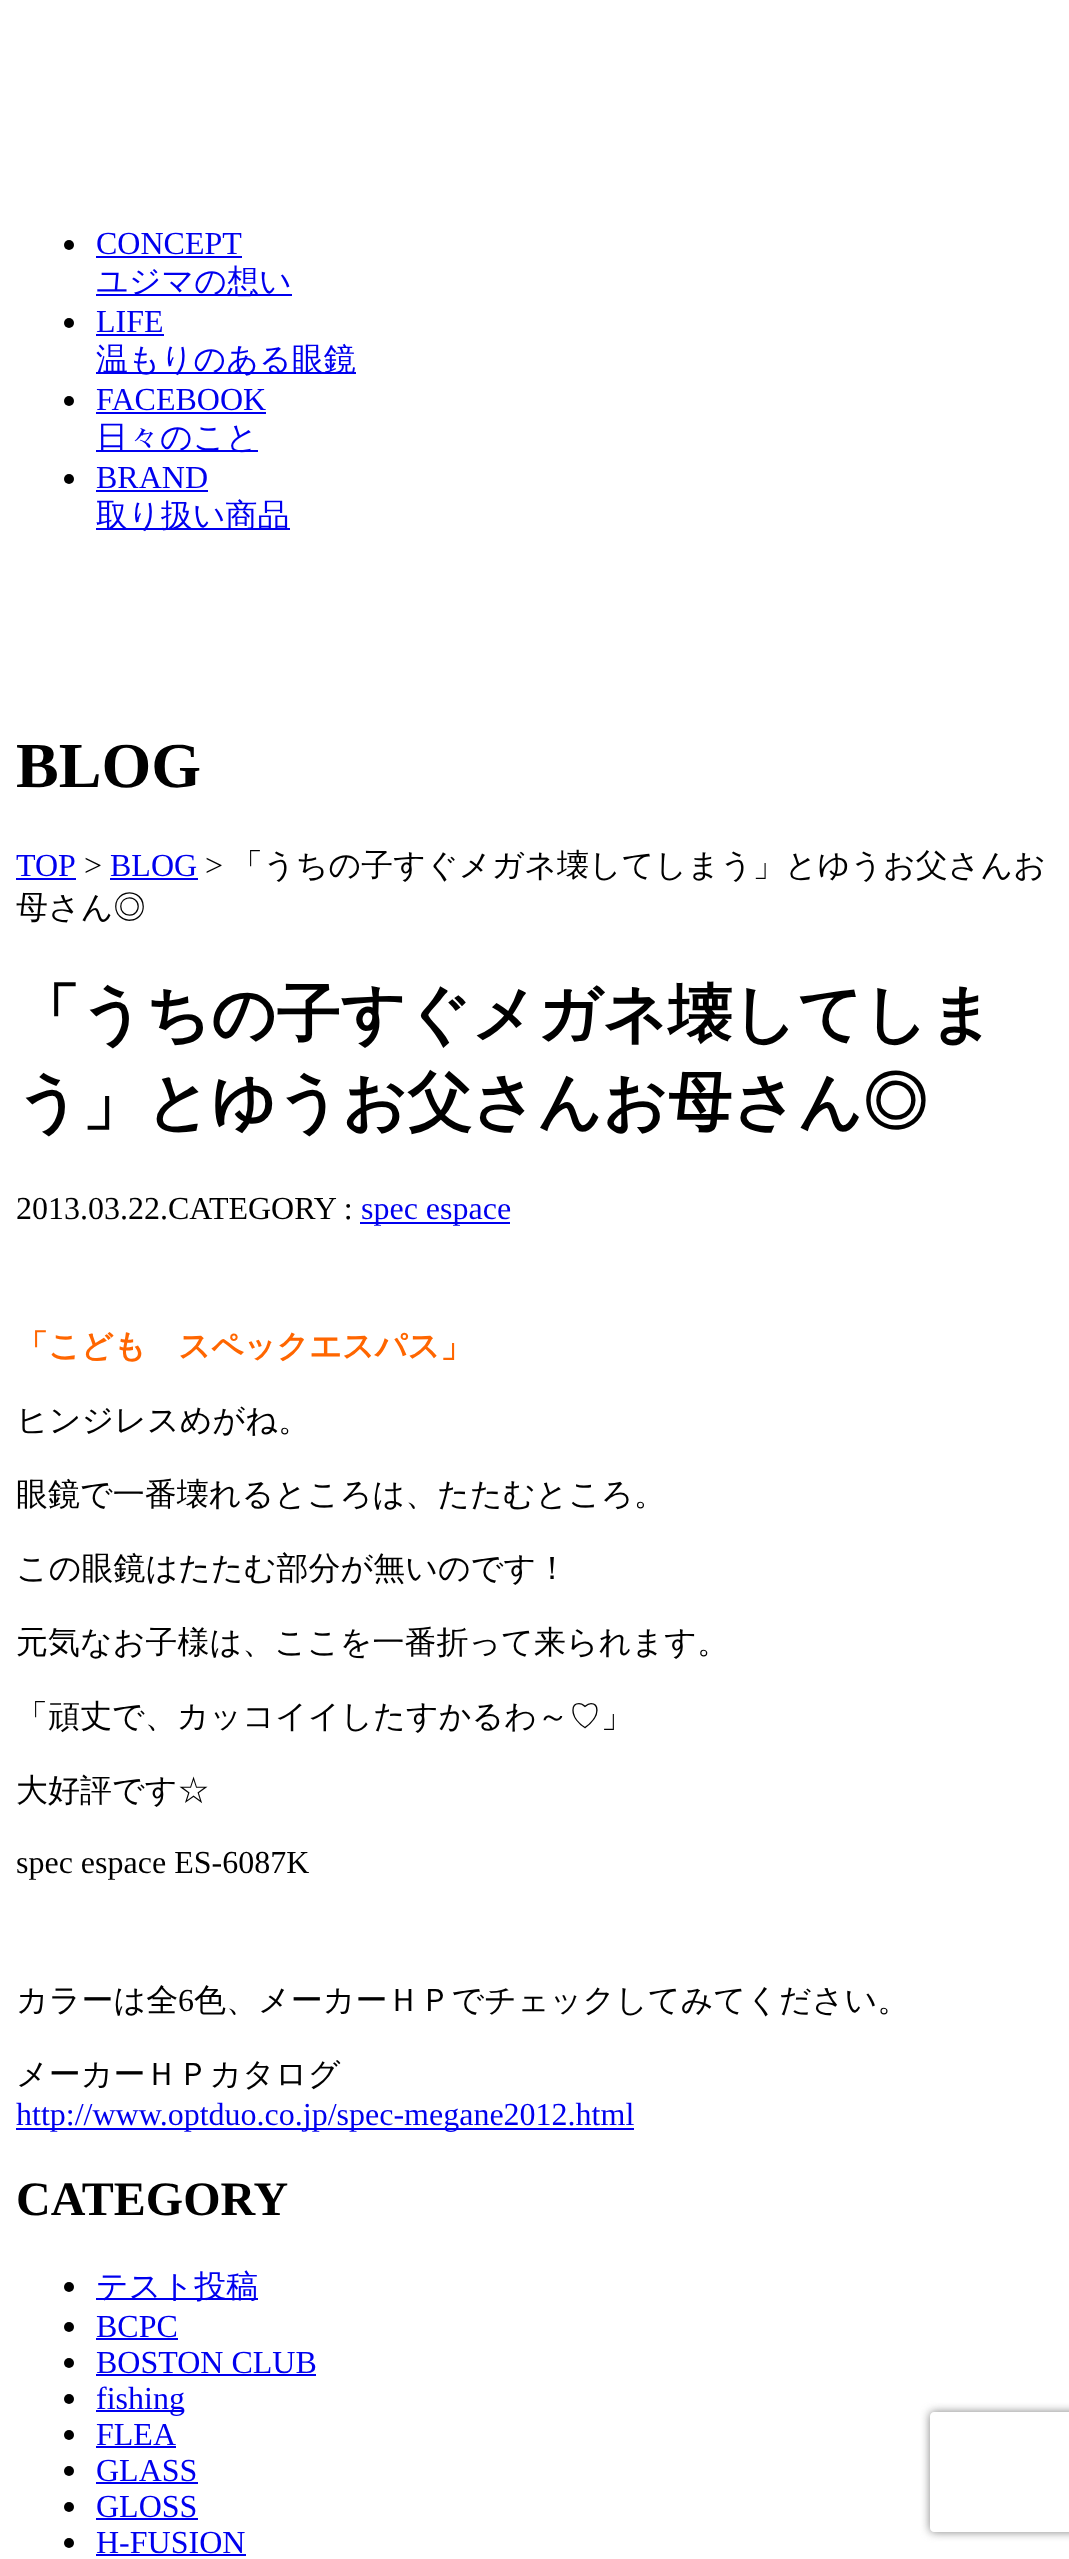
<svg xmlns="http://www.w3.org/2000/svg" width="1069" height="2559">
<style>
.a{font:32px Liberation Serif;fill:#00e}
.b{font:500 32px WenQuanYi Zen Hei;fill:#00e}
.c{font:bold 64px Liberation Serif;fill:#000}
.d{font:32px Liberation Serif;fill:#000}
.e{font:500 32px WenQuanYi Zen Hei;fill:#000}
.f{font:bold 64px WenQuanYi Zen Hei;fill:#000}
.g{font:bold 32px WenQuanYi Zen Hei;fill:#f60}
.h{font:bold 48px Liberation Serif;fill:#000}
</style>
<defs>
<clipPath id="clip1"><path d="M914 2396h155v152h-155zm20 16h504c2 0 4 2 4 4v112c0 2-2 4-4 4h-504c-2 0-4-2-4-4v-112c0-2 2-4 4-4z" clip-rule="evenodd"/></clipPath>
</defs>
<rect width="100%" height="100%" fill="#fff"/>
<circle fill="#000" cx="69" cy="245" r="5"/>
<path fill="#00e" d="M96 256h146v2H96z"/>
<path fill="#00e" d="M96 294h196v2H96z"/>
<circle fill="#000" cx="69" cy="323" r="5"/>
<path fill="#00e" d="M96 334h68v2H96z"/>
<path fill="#00e" d="M96 372h260v2H96z"/>
<circle fill="#000" cx="69" cy="401" r="5"/>
<path fill="#00e" d="M96 412h170v2H96z"/>
<path fill="#00e" d="M96 450h162v2H96z"/>
<circle fill="#000" cx="69" cy="479" r="5"/>
<path fill="#00e" d="M96 490h112v2H96z"/>
<path fill="#00e" d="M96 528h194v2H96z"/>
<path fill="#00e" d="M16 878h60v2H16z"/>
<path fill="#00e" d="M110 878h88v2H110z"/>
<path fill="#00e" d="M360 1222h150v2H360z"/>
<path fill="#00e" d="M16 2128h618v2H16z"/>
<circle fill="#000" cx="69" cy="2287" r="5"/>
<path fill="#00e" d="M96 2298h162v2H96z"/>
<circle fill="#000" cx="69" cy="2327" r="5"/>
<path fill="#00e" d="M96 2338h82v2H96z"/>
<circle fill="#000" cx="69" cy="2363" r="5"/>
<path fill="#00e" d="M96 2374h220v2H96z"/>
<circle fill="#000" cx="69" cy="2399" r="5"/>
<path fill="#00e" d="M96 2410h88v2H96z"/>
<circle fill="#000" cx="69" cy="2435" r="5"/>
<path fill="#00e" d="M96 2446h80v2H96z"/>
<circle fill="#000" cx="69" cy="2471" r="5"/>
<path fill="#00e" d="M96 2482h102v2H96z"/>
<circle fill="#000" cx="69" cy="2507" r="5"/>
<path fill="#00e" d="M96 2518h102v2H96z"/>
<circle fill="#000" cx="69" cy="2543" r="5"/>
<path fill="#00e" d="M96 2554h150v2H96z"/>
<g clip-path="url(#clip1)">
<rect fill="#808080" filter="blur(5px)" x="930" y="2412" width="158" height="120" rx="4"/>
</g>
<text class="a" x="96" y="254">CONCEPT</text>
<text class="b" x="96" y="292">ユジマの想い</text>
<text class="a" x="96" y="332">LIFE</text>
<text class="b" x="96" y="370">温もりのある眼鏡</text>
<text class="a" x="96" y="410">FACEBOOK</text>
<text class="b" x="96" y="448">日々のこと</text>
<text class="a" x="96" y="488">BRAND</text>
<text class="b" x="96" y="526">取り扱い商品</text>
<text class="c" x="16" y="787">BLOG</text>
<text class="a" x="16" y="876">TOP</text>
<text class="d" x="84" y="876">&gt;</text>
<text class="a" x="110" y="876">BLOG</text>
<text class="d" x="205" y="876">&gt;</text>
<text class="e" x="231" y="876">「うちの子すぐメガネ壊してしまう」とゆうお父さんお</text>
<text class="e" x="16" y="918">母さん◎</text>
<text class="f" x="16" y="1036">「うちの子すぐメガネ壊してしま</text>
<text class="f" x="16" y="1124">う」とゆうお父さんお母さん◎</text>
<text class="d" x="16" y="1219">2013.03.22.CATEGORY :</text>
<text class="a" x="361" y="1219">spec espace</text>
<text class="g" x="16" y="1357">「こども　スペックエスパス」</text>
<text class="e" x="16" y="1431">ヒンジレスめがね。</text>
<text class="e" x="16" y="1505">眼鏡で一番壊れるところは、たたむところ。</text>
<text class="e" x="16" y="1579">この眼鏡はたたむ部分が無いのです！</text>
<text class="e" x="16" y="1653">元気なお子様は、ここを一番折って来られます。</text>
<text class="e" x="16" y="1727">「頑丈で、カッコイイしたすかるわ～♡」</text>
<text class="e" x="16" y="1801">大好評です☆</text>
<text class="d" x="16" y="1873">spec espace ES-6087K</text>
<text class="e" x="16" y="2011">カラーは全</text>
<text class="d" x="178" y="2011">6</text>
<text class="e" x="194" y="2011">色、メーカーＨＰでチェックしてみてください。</text>
<text class="e" x="16" y="2085">メーカーＨＰカタログ</text>
<text class="a" x="16" y="2125">http://www.optduo.co.jp/spec-megane2012.html</text>
<text class="h" x="16" y="2215">CATEGORY</text>
<text class="b" x="96" y="2297">テスト投稿</text>
<text class="a" x="96" y="2337">BCPC</text>
<text class="a" x="96" y="2373">BOSTON CLUB</text>
<text class="a" x="96" y="2409">fishing</text>
<text class="a" x="96" y="2445">FLEA</text>
<text class="a" x="96" y="2481">GLASS</text>
<text class="a" x="96" y="2517">GLOSS</text>
<text class="a" x="96" y="2553">H-FUSION</text>
</svg>
